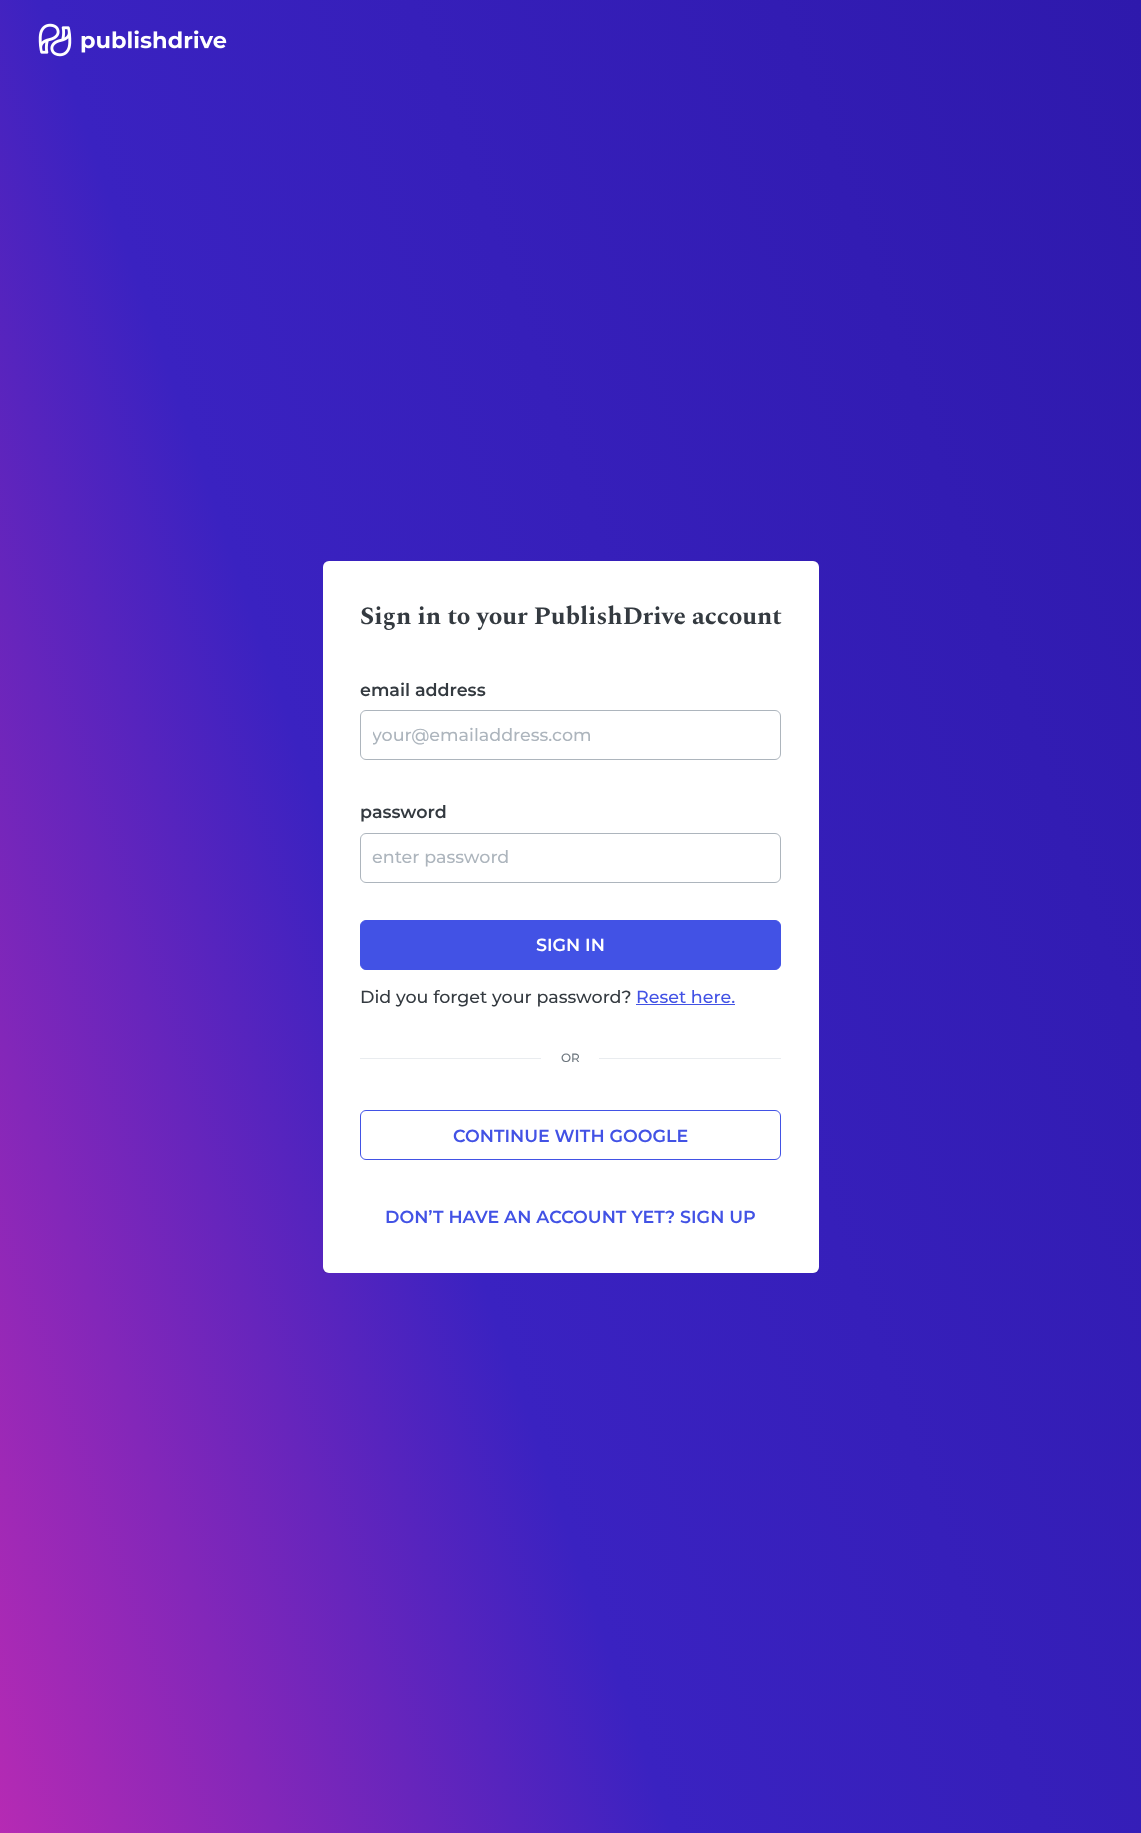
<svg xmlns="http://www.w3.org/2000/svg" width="1141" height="1833">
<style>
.a{font:bold 24.9px Spectral;fill:#343a40}
.b{font:600 17.5px Montserrat;fill:#343a40}
.c{font:500 17.5px Montserrat;fill:#adb5bd}
.d{font:600 17.5px Montserrat;fill:#fff}
.e{font:500 17.5px Montserrat;fill:#343a40}
.f{font:500 17.5px Montserrat;fill:#4252e5}
.g{font:500 12px Montserrat;fill:#6c757d}
.h{font:600 17.5px Montserrat;fill:#4252e5}
</style>
<defs>
<linearGradient id="g1" gradientUnits="userSpaceOnUse" x1="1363" y1="644" x2="-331" y2="1227"><stop offset="0" stop-color="#2e19ac"/><stop offset="0.58" stop-color="#3a22c1"/><stop offset="1" stop-color="#cc2cb1"/></linearGradient>
<clipPath id="clip1"><path d="M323 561h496v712H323z"/></clipPath>
<clipPath id="clip2"><path d="M373 724h396v22H373z"/></clipPath>
</defs>
<rect width="100%" height="100%" fill="#fff"/>
<path fill="url(#g1)" d="M0 0h1141v1833H0z"/>
<image href="1.png" x="38" y="23" width="189" height="34"/>
<g clip-path="url(#clip1)">
<rect fill="#00000026" filter="blur(2px)" x="323" y="563" width="496" height="711" rx="6"/>
</g>
<rect fill="#fff" x="323" y="561" width="496" height="712" rx="6"/>
<rect fill="none" stroke="#adb5bd" x="360.5" y="710.5" width="420" height="49" rx="5.5"/>
<rect fill="none" stroke="#adb5bd" x="360.5" y="833.5" width="420" height="49" rx="5.5"/>
<rect fill="#4252e5" stroke="#4252e5" x="360.5" y="920.5" width="420" height="49" rx="5.5"/>
<path fill="#4252e5" d="M636 1004h99v1H636z"/>
<path fill="#e9ecef" d="M360 1058h421v1H360z"/>
<path fill="#fff" d="M541 1058h58v1H541z"/>
<rect fill="none" stroke="#4252e5" x="360.5" y="1110.5" width="420" height="49" rx="5.5"/>
<text class="a" x="360" y="624">Sign in to your PublishDrive account</text>
<text class="b" x="360" y="696">email address</text>
<g clip-path="url(#clip2)">
<text class="c" x="372" y="741">your@emailaddress.com</text>
</g>
<text class="b" x="360" y="818">password</text>
<text class="c" x="372" y="863">enter password</text>
<text class="d" x="536" y="951">SIGN IN</text>
<text class="e" x="360" y="1003">Did you forget your password?</text>
<text class="f" x="636" y="1003">Reset here.</text>
<text class="g" x="561" y="1062">OR</text>
<text class="h" x="453" y="1142">CONTINUE WITH GOOGLE</text>
<text class="h" x="385" y="1223">DON’T HAVE AN ACCOUNT YET? SIGN UP</text>
</svg>
